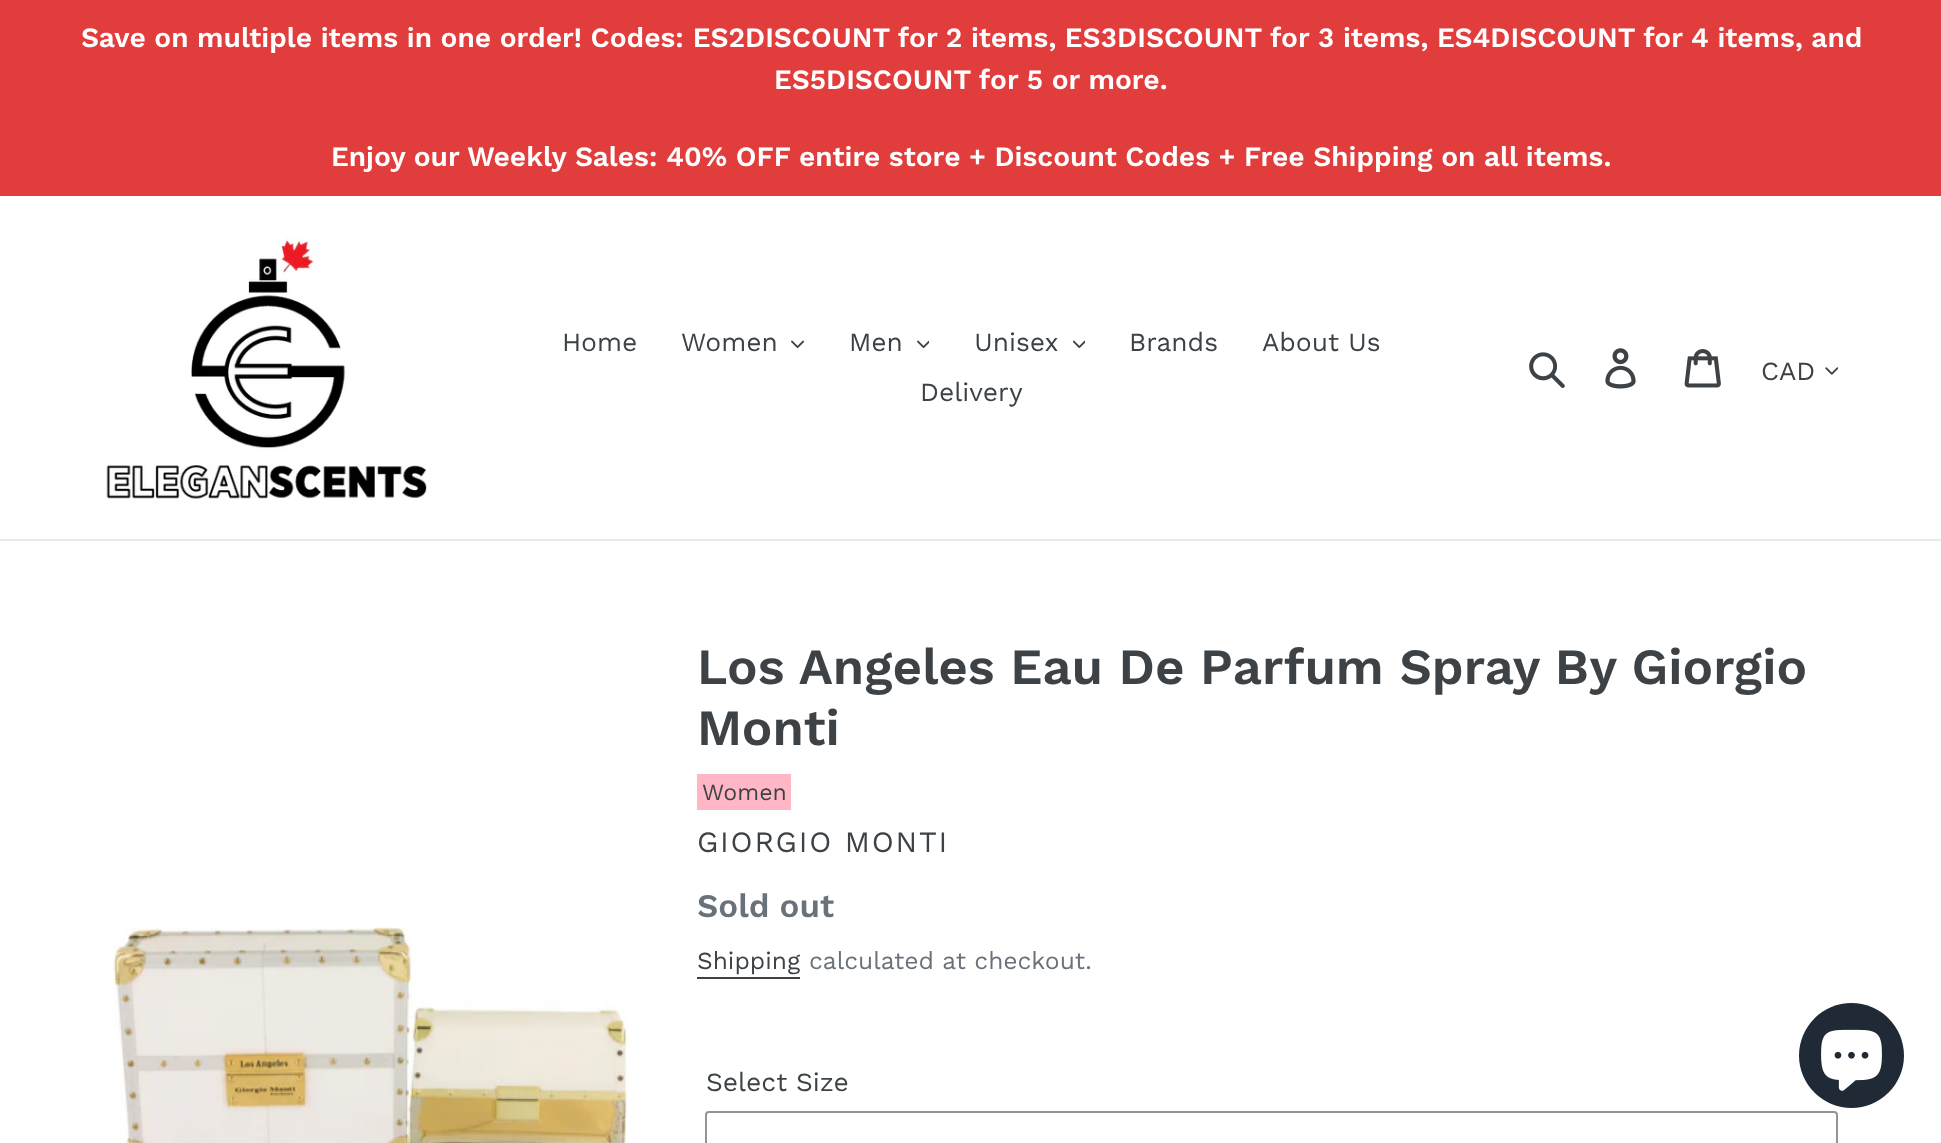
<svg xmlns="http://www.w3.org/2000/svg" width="1941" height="1143">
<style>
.a{font:600 28px Work Sans;fill:#fff}
.b{font:26.25px Work Sans;fill:#3d4246}
.c{font:600 50.75px Work Sans;fill:#3d4246}
.d{font:23px Work Sans;fill:#3d4246}
.e{font:29.5px Work Sans;letter-spacing:1.75px;fill:#3d4246}
.f{font:600 33px Work Sans;fill:#69727b}
.g{font:24.5px Work Sans;fill:#3d4246}
.h{font:24.5px Work Sans;fill:#69727b}
</style>
<rect width="100%" height="100%" fill="#fff"/>
<path fill="#e23d3d" d="M0 0h1941v196H0z"/>
<path fill="#e8e9eb" d="M0 539h1941v2H0z"/>
<image href="1.png" x="106" y="237" width="321" height="262"/>
<image href="2.png" x="791" y="340" width="14" height="8"/>
<image href="3.png" x="917" y="340" width="12" height="8"/>
<image href="4.png" x="1073" y="340" width="12" height="8"/>
<image href="5.png" x="1529" y="352" width="36" height="36"/>
<image href="6.png" x="1605" y="348" width="31" height="41"/>
<image href="7.png" x="1684" y="349" width="37" height="39"/>
<image href="8.png" x="1825" y="367" width="13" height="8"/>
<image href="9.png" x="113" y="927" width="515" height="216"/>
<path fill="#ffb7c5" d="M697 774h94v36H697z"/>
<path fill="#3d4246" d="M697 977h103v2H697z"/>
<rect fill="none" stroke="#949494" stroke-width="2" x="706" y="1112" width="1131" height="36" rx="3"/>
<circle fill="#202a36" cx="1851.5" cy="1055.5" r="52.5"/>
<image href="10.png" x="1821" y="1029" width="61" height="62"/>
<text class="a" x="81" y="47">Save on multiple items in one order! Codes: ES2DISCOUNT for 2 items, ES3DISCOUNT for 3 items, ES4DISCOUNT for 4 items, and</text>
<text class="a" x="774" y="89">ES5DISCOUNT for 5 or more.</text>
<text class="a" x="331" y="166">Enjoy our Weekly Sales: 40% OFF entire store + Discount Codes + Free Shipping on all items.</text>
<text class="b" x="562" y="351">Home</text>
<text class="b" x="681" y="351">Women</text>
<text class="b" x="849" y="351">Men</text>
<text class="b" x="974" y="351">Unisex</text>
<text class="b" x="1129" y="351">Brands</text>
<text class="b" x="1262" y="351">About Us</text>
<text class="b" x="920" y="401">Delivery</text>
<text class="b" x="1761" y="380">CAD</text>
<text class="c" x="697" y="684">Los Angeles Eau De Parfum Spray By Giorgio</text>
<text class="c" x="697" y="745">Monti</text>
<text class="d" x="702" y="800">Women</text>
<text class="e" x="697" y="852">GIORGIO MONTI</text>
<text class="f" x="697" y="917">Sold out</text>
<text class="g" x="697" y="969">Shipping</text>
<text class="h" x="809" y="969">calculated at checkout.</text>
<text class="b" x="706" y="1091">Select Size</text>
</svg>
